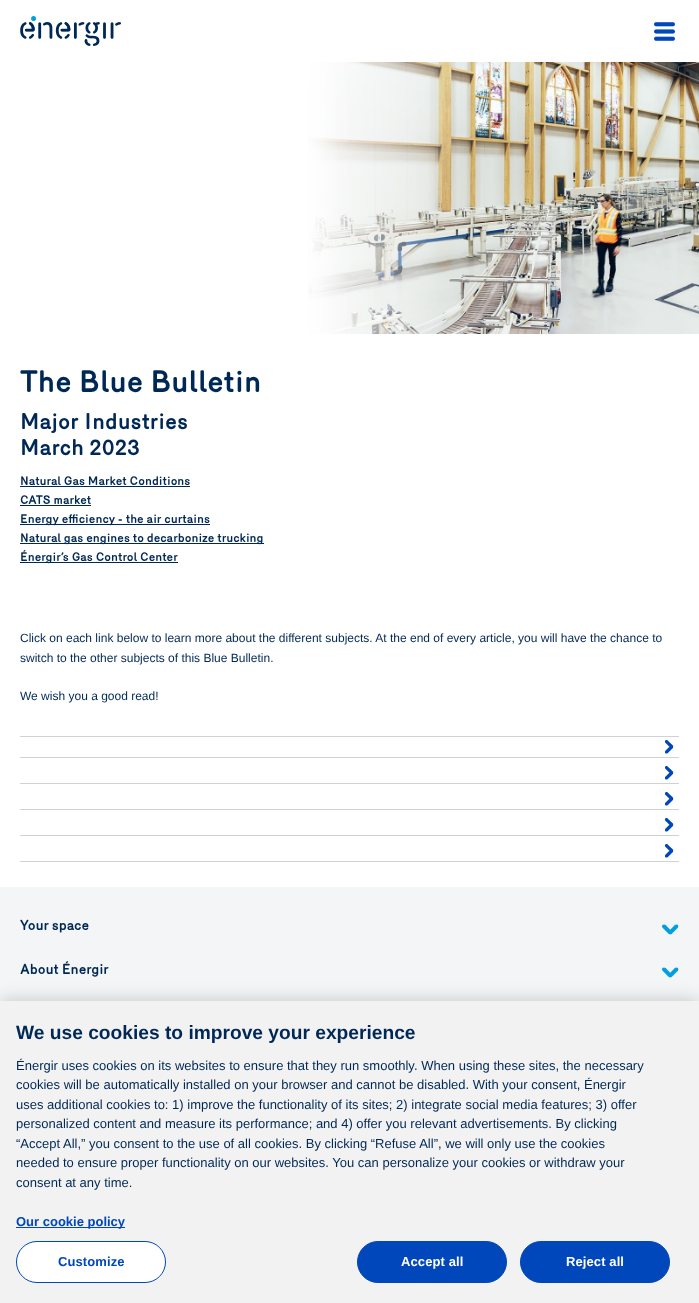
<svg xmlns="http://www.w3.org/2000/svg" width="699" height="1303">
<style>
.a{font:bold 30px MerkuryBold;fill:#002855}
.b{font:bold 22px MerkuryBold;fill:#002855}
.c{font:bold 12px MerkuryBold;fill:#002855}
.d{font:12px Liberation Sans;fill:#002855}
.e{font:bold 14px MerkuryBold;letter-spacing:-0.1px;fill:#002855}
.f{font:bold 19.2px Liberation Sans;fill:#002855}
.g{font:13px Liberation Sans;fill:#002855}
.h{font:bold 13px Liberation Sans;fill:#0047bb}
.i{font:bold 13px Liberation Sans;letter-spacing:0.1px;fill:#0047bb}
.j{font:bold 13px Liberation Sans;letter-spacing:0.1px;fill:#fff}
</style>
<rect width="100%" height="100%" fill="#fff"/>
<image href="1.png" x="20" y="16" width="101" height="30"/>
<image href="2.png" x="654" y="22" width="21" height="19"/>
<image href="3.png" x="308" y="62" width="391" height="272"/>
<path fill="#002855" d="M20 486h170v1H20z"/>
<path fill="#002855" d="M20 505h71v1H20z"/>
<path fill="#002855" d="M20 524h190v1H20z"/>
<path fill="#002855" d="M20 543h244v1H20z"/>
<path fill="#002855" d="M20 562h158v1H20z"/>
<path fill="#d0d3d4" d="M20 736h659v1H20z"/>
<path fill="#d0d3d4" d="M20 757h659v1H20z"/>
<image href="4.png" x="664" y="740" width="10" height="14"/>
<path fill="#d0d3d4" d="M20 783h659v1H20z"/>
<image href="4.png" x="664" y="766" width="10" height="14"/>
<path fill="#d0d3d4" d="M20 809h659v1H20z"/>
<image href="4.png" x="664" y="792" width="10" height="14"/>
<path fill="#d0d3d4" d="M20 835h659v1H20z"/>
<image href="4.png" x="664" y="818" width="10" height="14"/>
<path fill="#d0d3d4" d="M20 861h659v1H20z"/>
<image href="4.png" x="664" y="844" width="10" height="14"/>
<path fill="#f3f5f7" d="M0 887h699v114H0z"/>
<image href="5.png" x="662" y="924" width="17" height="11"/>
<image href="5.png" x="662" y="967" width="17" height="11"/>
<path fill="#00000033" filter="blur(9px)" d="M0 1001h699v302H0z"/>
<path fill="#f2f2f2" d="M0 1001h699v302H0z"/>
<path fill="#0047bb" d="M16 1227h109v1H16z"/>
<rect fill="#fff" stroke="#0047bb" x="16.5" y="1241.5" width="149" height="41" rx="20.5"/>
<rect fill="#0047bb" stroke="#0047bb" x="357.5" y="1241.5" width="149" height="41" rx="20.5"/>
<rect fill="#0047bb" stroke="#0047bb" x="520.5" y="1241.5" width="149" height="41" rx="20.5"/>
<text class="a" x="20" y="392">The Blue Bulletin</text>
<text class="b" x="20" y="429">Major Industries</text>
<text class="b" x="20" y="455">March 2023</text>
<text class="c" x="20" y="485">Natural Gas Market Conditions</text>
<text class="c" x="20" y="504">CATS market</text>
<text class="c" x="20" y="523">Energy efficiency - the air curtains</text>
<text class="c" x="20" y="542">Natural gas engines to decarbonize trucking</text>
<text class="c" x="20" y="561">Énergir’s Gas Control Center</text>
<text class="d" x="20" y="642">Click on each link below to learn more about the different subjects. At the end of every article, you will have the chance to</text>
<text class="d" x="20" y="662">switch to the other subjects of this Blue Bulletin.</text>
<text class="d" x="20" y="700">We wish you a good read!</text>
<text class="e" x="20" y="930">Your space</text>
<text class="e" x="20" y="974">About Énergir</text>
<text class="f" x="16" y="1039">We use cookies to improve your experience</text>
<text class="g" x="16" y="1070">Énergir uses cookies on its websites to ensure that they run smoothly. When using these sites, the necessary</text>
<text class="g" x="16" y="1089">cookies will be automatically installed on your browser and cannot be disabled. With your consent, Énergir</text>
<text class="g" x="16" y="1109">uses additional cookies to: 1) improve the functionality of its sites; 2) integrate social media features; 3) offer</text>
<text class="g" x="16" y="1128">personalized content and measure its performance; and 4) offer you relevant advertisements. By clicking</text>
<text class="g" x="16" y="1148">“Accept All,” you consent to the use of all cookies. By clicking “Refuse All”, we will only use the cookies</text>
<text class="g" x="16" y="1167">needed to ensure proper functionality on our websites. You can personalize your cookies or withdraw your</text>
<text class="g" x="16" y="1187">consent at any time.</text>
<text class="h" x="16" y="1226">Our cookie policy</text>
<text class="i" x="58" y="1266">Customize</text>
<text class="j" x="401" y="1266">Accept all</text>
<text class="j" x="566" y="1266">Reject all</text>
</svg>
